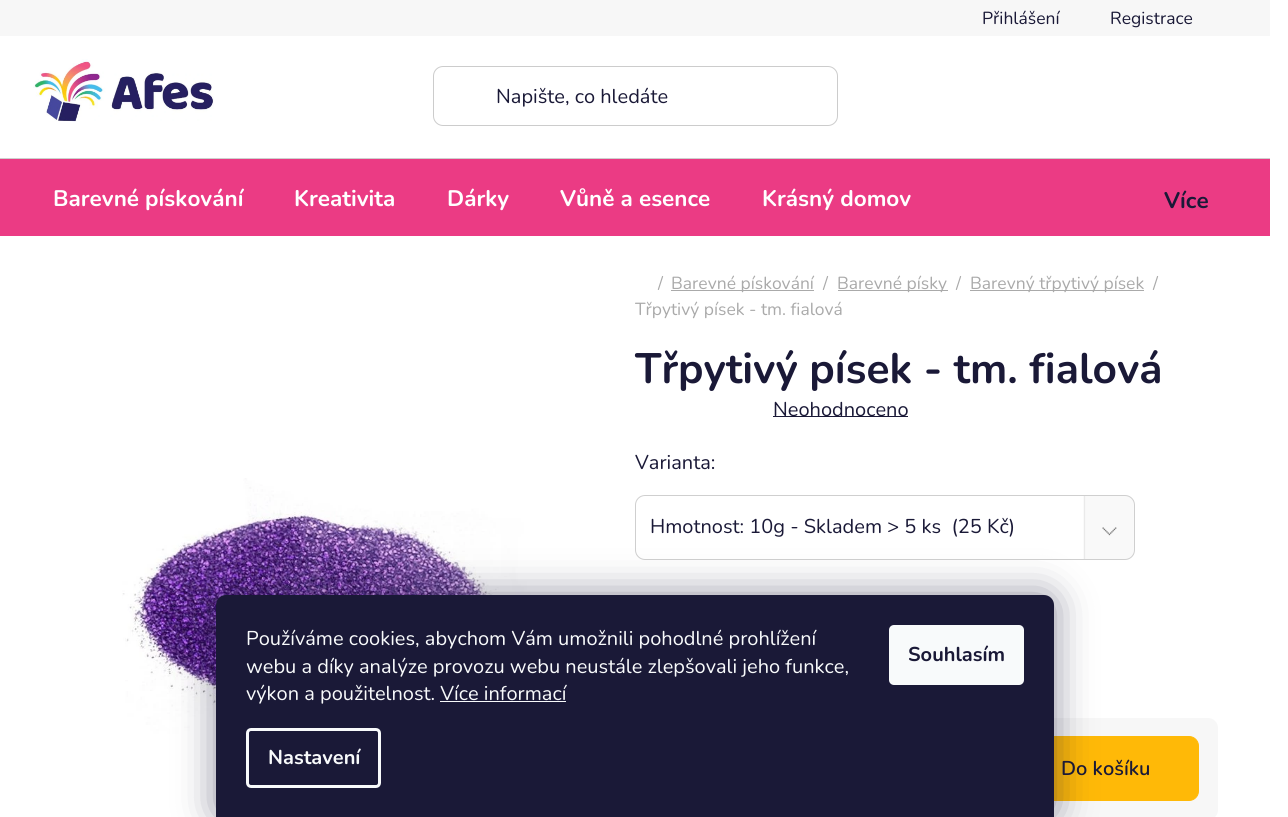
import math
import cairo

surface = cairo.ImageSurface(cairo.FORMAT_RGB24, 1288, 817)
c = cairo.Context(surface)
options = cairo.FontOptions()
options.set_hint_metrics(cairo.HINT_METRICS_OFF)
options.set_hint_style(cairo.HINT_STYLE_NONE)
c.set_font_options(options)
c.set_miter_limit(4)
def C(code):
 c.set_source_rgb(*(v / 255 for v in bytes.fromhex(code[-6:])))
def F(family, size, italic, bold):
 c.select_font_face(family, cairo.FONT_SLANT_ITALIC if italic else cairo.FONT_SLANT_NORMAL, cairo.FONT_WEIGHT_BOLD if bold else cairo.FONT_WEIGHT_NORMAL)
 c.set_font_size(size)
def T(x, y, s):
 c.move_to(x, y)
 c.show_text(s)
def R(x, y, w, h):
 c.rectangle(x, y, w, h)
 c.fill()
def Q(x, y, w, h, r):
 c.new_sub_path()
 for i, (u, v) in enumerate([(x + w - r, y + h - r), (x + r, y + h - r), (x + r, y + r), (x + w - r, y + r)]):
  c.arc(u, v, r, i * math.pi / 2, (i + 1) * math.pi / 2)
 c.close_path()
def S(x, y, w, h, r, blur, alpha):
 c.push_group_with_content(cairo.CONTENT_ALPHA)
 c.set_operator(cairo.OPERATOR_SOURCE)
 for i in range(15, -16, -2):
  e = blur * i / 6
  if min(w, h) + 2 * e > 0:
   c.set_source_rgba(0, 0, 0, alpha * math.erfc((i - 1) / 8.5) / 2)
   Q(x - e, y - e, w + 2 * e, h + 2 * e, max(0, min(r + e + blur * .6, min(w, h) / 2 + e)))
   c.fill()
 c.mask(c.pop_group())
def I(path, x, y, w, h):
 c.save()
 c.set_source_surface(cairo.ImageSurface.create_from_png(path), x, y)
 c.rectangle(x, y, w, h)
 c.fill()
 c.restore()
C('ffffff')
c.paint()
C('f7f7f7')
R(0,0,1270,36)
F('Nunito',17.5,0,0)
C('1a1937')
T(982,24,'Přihlášení')
T(1110,24,'Registrace')
I('1.png',33,59,181,63)
Q(433.5,66.5,404,59,9.5)
C('cccccc')
c.set_line_width(1)
c.stroke()
F('Nunito',20,0,0)
C('1a1937')
T(496,103,'Napište, co hledáte')
C('eb3b84')
R(0,159,1270,77)
C('cfcfcf')
R(0,158,1270,1)
F('Nunito',22.5,0,1)
C('ffffff')
T(53,206,'Barevné pískování')
T(294,206,'Kreativita')
T(447,206,'Dárky')
T(560,206,'Vůně a esence')
T(762,206,'Krásný domov')
C('1a1937')
T(1164,208,'Více')
F('Nunito',17.5,0,0)
C('aaaaaa')
T(658,289,'/')
R(671,290,143,1)
T(671,289,'Barevné pískování')
T(823,289,'/')
R(838,290,110,1)
T(837,289,'Barevné písky')
T(956,289,'/')
R(970,290,174,1)
T(970,289,'Barevný třpytivý písek')
T(1153,289,'/')
T(635,315,'Třpytivý písek - tm. fialová')
I('2.png',122,478,409,308)
F('Nunito',42.5,0,1)
C('1a1937')
T(635,383,'Třpytivý písek - tm. fialová')
R(773,416,135,1)
F('Nunito',20,0,0)
T(773,416,'Neohodnoceno')
T(635,469,'Varianta:')
I('3.png',1083,495,51,65)
Q(635.5,495.5,499,64,9.5)
C('cfcfcf')
c.stroke()
C('1a1937')
T(650,533,'Hmotnost: 10g - Skladem > 5 ks  (25 Kč)')
C('f7f7f7')
Q(635,718,583,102,10)
c.fill()
C('ffb907')
Q(1013.5,736.5,185,64,9.5)
c.fill_preserve()
c.stroke()
F('Nunito SemiBold',20,0,0)
C('1a1937')
T(1061,775,'Do košíku')
C('1b1939')
S(216,595,838,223,10,19,.5)
C('1a1937')
c.new_path()
c.move_to(226,595)
c.line_to(1044,595)
c.curve_to(1049.5,595,1054,599.5,1054,605)
c.line_to(1054,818)
c.line_to(216,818)
c.line_to(216,605)
c.curve_to(216,599.5,220.5,595,226,595)
c.close_path()
c.fill()
F('Nunito',20,0,0)
C('f8fafb')
T(246,645,'Používáme cookies, abychom Vám umožnili pohodlné prohlížení')
T(246,673,'webu a díky analýze provozu webu neustále zlepšovali jeho funkce,')
T(246,700,'výkon a použitelnost. Více informací')
R(440,701,126,1)
Q(247.5,729.5,132,57,3.5)
c.set_line_width(3)
c.stroke()
F('Nunito',20,0,1)
T(268,764,'Nastavení')
Q(889,625,135,60,5)
c.fill()
C('1a1937')
T(908,661,'Souhlasím')
surface.write_to_png('o.png')
